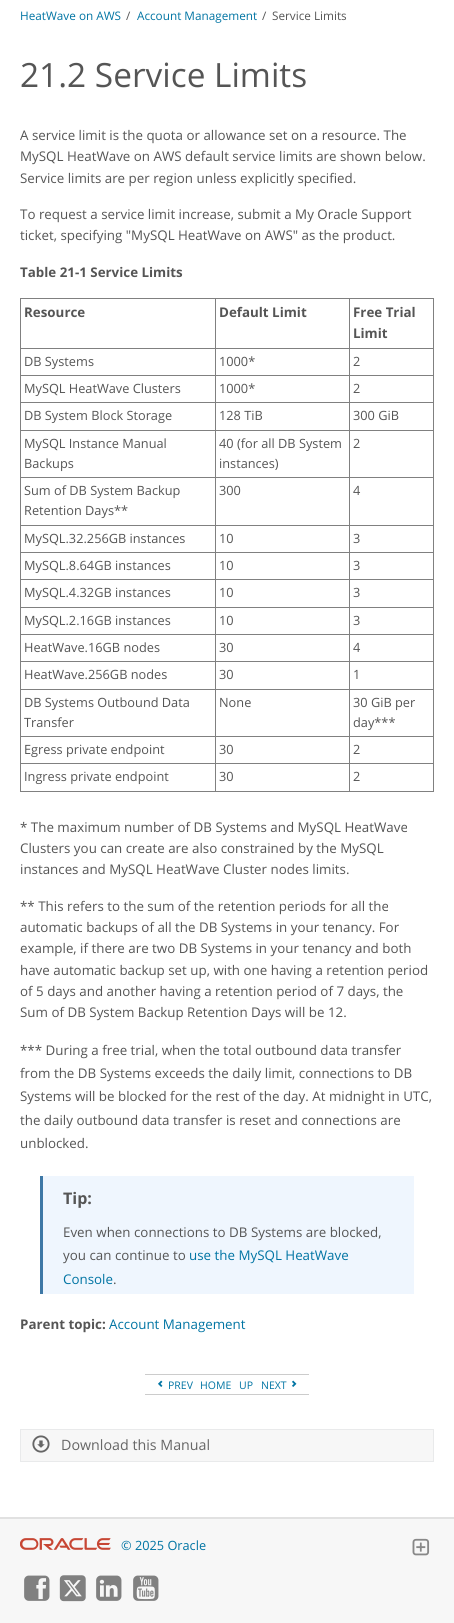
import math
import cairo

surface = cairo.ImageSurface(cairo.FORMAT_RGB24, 454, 1623)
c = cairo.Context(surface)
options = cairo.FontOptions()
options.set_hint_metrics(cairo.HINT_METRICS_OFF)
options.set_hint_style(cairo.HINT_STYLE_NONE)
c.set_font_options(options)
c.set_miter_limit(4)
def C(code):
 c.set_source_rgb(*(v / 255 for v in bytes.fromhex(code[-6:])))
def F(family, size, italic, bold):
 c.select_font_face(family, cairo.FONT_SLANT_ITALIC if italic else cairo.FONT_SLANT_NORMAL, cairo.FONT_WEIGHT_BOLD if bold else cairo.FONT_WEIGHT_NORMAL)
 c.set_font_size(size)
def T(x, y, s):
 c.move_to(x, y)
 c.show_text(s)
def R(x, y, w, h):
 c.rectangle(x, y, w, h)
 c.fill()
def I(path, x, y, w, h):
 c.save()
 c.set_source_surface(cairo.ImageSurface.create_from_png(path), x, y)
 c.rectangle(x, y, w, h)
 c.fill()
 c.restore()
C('ffffff')
c.paint()
F('Open Sans',11.75,0,0)
C('0074a3')
T(20,20,'HeatWave on AWS')
C('555555')
T(126,20,'/')
C('0074a3')
T(137,20,'Account Management')
C('555555')
T(262,20,'/')
T(272,20,'Service Limits')
F('Open Sans',33.4,0,0)
T(20,87,'21.2 Service Limits')
F('Open Sans',13.35,0,0)
T(20,140,'A service limit is the quota or allowance set on a resource. The')
T(20,161,'MySQL HeatWave on AWS')
T(185,161,'default service limits are shown below.')
T(20,183,'Service limits are per region unless explicitly specified.')
T(20,219,'To request a service limit increase, submit a My Oracle Support')
T(20,240,'ticket, specifying "MySQL HeatWave on AWS" as the product.')
F('Open Sans',13.35,0,1)
T(20,277,'Table 21-1 Service Limits')
C('808080')
R(349,298,85,1)
R(349,348,85,1)
R(349,375,85,1)
R(349,402,85,1)
R(349,430,85,1)
R(349,477,85,1)
R(349,525,85,1)
R(349,552,85,1)
R(349,579,85,1)
R(349,607,85,1)
R(349,634,85,1)
R(349,661,85,1)
R(349,689,85,1)
R(349,736,85,1)
R(349,763,85,1)
R(433,763,1,29)
R(349,791,85,1)
R(349,763,1,29)
R(215,763,135,1)
R(349,736,1,28)
R(215,736,135,1)
R(349,689,1,48)
R(215,689,135,1)
R(349,661,1,29)
R(215,661,135,1)
R(349,634,1,28)
R(215,634,135,1)
R(349,607,1,28)
R(215,607,135,1)
R(349,579,1,29)
R(215,579,135,1)
R(349,552,1,28)
R(215,552,135,1)
R(349,525,1,28)
R(215,525,135,1)
R(349,477,1,49)
R(215,477,135,1)
R(349,430,1,48)
R(215,430,135,1)
R(349,402,1,29)
R(215,402,135,1)
R(349,375,1,28)
R(215,375,135,1)
R(349,348,1,28)
R(215,348,135,1)
R(349,298,1,51)
R(215,298,135,1)
R(215,791,135,1)
R(215,763,1,29)
R(20,763,196,1)
R(215,736,1,28)
R(20,736,196,1)
R(215,689,1,48)
R(20,689,196,1)
R(215,661,1,29)
R(20,661,196,1)
R(215,634,1,28)
R(20,634,196,1)
R(215,607,1,28)
R(20,607,196,1)
R(215,579,1,29)
R(20,579,196,1)
R(215,552,1,28)
R(20,552,196,1)
R(215,525,1,28)
R(20,525,196,1)
R(215,477,1,49)
R(20,477,196,1)
R(215,430,1,48)
R(20,430,196,1)
R(215,402,1,29)
R(20,402,196,1)
R(215,375,1,28)
R(20,375,196,1)
R(215,348,1,28)
R(20,348,196,1)
R(215,298,1,51)
R(20,298,196,1)
R(20,791,196,1)
R(20,763,1,29)
R(20,736,1,28)
R(20,689,1,48)
R(20,661,1,29)
R(20,634,1,28)
R(20,607,1,28)
R(20,579,1,29)
R(20,552,1,28)
R(20,525,1,28)
R(20,477,1,49)
R(20,430,1,48)
R(20,402,1,29)
R(20,375,1,28)
R(20,348,1,28)
R(20,298,1,51)
C('555555')
T(24,317,'Resource')
T(219,317,'Default Limit')
C('808080')
R(433,736,1,28)
R(433,689,1,48)
R(433,661,1,29)
R(433,634,1,28)
R(433,607,1,28)
R(433,579,1,29)
R(433,552,1,28)
R(433,525,1,28)
R(433,477,1,49)
R(433,430,1,48)
R(433,402,1,29)
R(433,375,1,28)
R(433,348,1,28)
R(433,298,1,51)
C('555555')
T(353,317,'Free Trial')
T(353,338,'Limit')
F('Open Sans',12.75,0,0)
T(24,366,'DB Systems')
T(219,366,'1000*')
T(353,366,'2')
T(24,393,'MySQL HeatWave Clusters')
T(219,393,'1000*')
T(353,393,'2')
T(24,420,'DB System Block Storage')
T(219,420,'128 TiB')
T(353,420,'300 GiB')
T(24,448,'MySQL Instance Manual')
T(24,468,'Backups')
T(219,448,'40 (for all DB System')
T(219,468,'instances)')
T(353,448,'2')
T(24,495,'Sum of DB System Backup')
T(24,515,'Retention Days**')
T(219,495,'300')
T(353,495,'4')
T(24,543,'MySQL.32.256GB instances')
T(219,543,'10')
T(353,543,'3')
T(24,570,'MySQL.8.64GB instances')
T(219,570,'10')
T(353,570,'3')
T(24,597,'MySQL.4.32GB instances')
T(219,597,'10')
T(353,597,'3')
T(24,625,'MySQL.2.16GB instances')
T(219,625,'10')
T(353,625,'3')
T(24,652,'HeatWave.16GB nodes')
T(219,652,'30')
T(353,652,'4')
T(24,679,'HeatWave.256GB nodes')
T(219,679,'30')
T(353,679,'1')
T(24,707,'DB Systems Outbound Data')
T(24,727,'Transfer')
T(219,707,'None')
T(353,707,'30 GiB per')
T(353,727,'day***')
T(24,754,'Egress private endpoint')
T(219,754,'30')
T(353,754,'2')
T(24,781,'Ingress private endpoint')
T(219,781,'30')
T(353,781,'2')
F('Open Sans',13.35,0,0)
T(20,832,'* The maximum number of DB Systems and MySQL HeatWave')
T(20,853,'Clusters you can create are also constrained by the MySQL')
T(20,874,'instances and MySQL HeatWave Cluster nodes limits.')
T(20,911,'** This refers to the sum of the retention periods for all the')
T(20,932,'automatic backups of all the DB Systems in your tenancy. For')
T(20,953,'example, if there are two DB Systems in your tenancy and both')
T(20,975,'have automatic backup set up, with one having a retention period')
T(20,996,'of 5 days and another having a')
T(215,996,'retention period of 7 days, the')
T(20,1017,'Sum of DB System Backup Retention Days will be 12.')
T(20,1055,'*** During a free trial, when the total outbound data transfer')
T(20,1078,'from the DB Systems exceeds the daily limit, connections to DB')
T(20,1101,'Systems will be blocked for the rest of the day. At midnight in UTC,')
T(20,1125,'the daily outbound data transfer is reset and connections are')
T(20,1148,'unblocked.')
C('eff6fe')
R(43,1176,371,118)
C('3e78a6')
R(40,1176,3,118)
F('Open Sans',16,0,1)
C('555555')
T(63,1204,'Tip:')
F('Open Sans',13.35,0,0)
T(63,1237,'Even when connections to DB Systems are blocked,')
T(63,1260,'you can continue to')
C('0074a3')
T(189,1260,'use the MySQL HeatWave')
T(63,1284,'Console')
C('555555')
T(113,1284,'.')
F('Open Sans',13.35,0,1)
T(20,1329,'Parent topic:')
F('Open Sans',13.35,0,0)
C('0074a3')
T(109,1329,'Account Management')
C('cccccc')
R(145,1374,164,1)
R(145,1394,164,1)
I('1.png',158,1380,5,7)
F('Open Sans',10.5,0,0)
C('0074a3')
T(168,1389,'PREV')
T(200,1389,'HOME')
T(239,1389,'UP')
T(261,1389,'NEXT')
I('2.png',292,1380,5,7)
C('f7f7f7')
c.rectangle(20.5,1429.5,413,32)
c.fill_preserve()
C('e9eaeb')
c.set_line_width(1)
c.stroke()
I('3.png',32,1435,18,18)
F('Open Sans',14.25,0,0)
C('666666')
T(61,1450,'Download this Manual')
C('f7f7f7')
R(0,1519,454,104)
C('e1e1e1')
R(0,1517,454,2)
I('4.png',20,1538,91,12)
F('Open Sans',12.75,0,0)
C('0074a3')
T(121,1550,'© 2025 Oracle')
I('5.png',412,1538,18,18)
I('6.png',24,1575,26,26)
I('7.png',59,1575,27,27)
I('8.png',96,1575,26,26)
I('9.png',133,1575,26,26)
surface.write_to_png('o.png')
